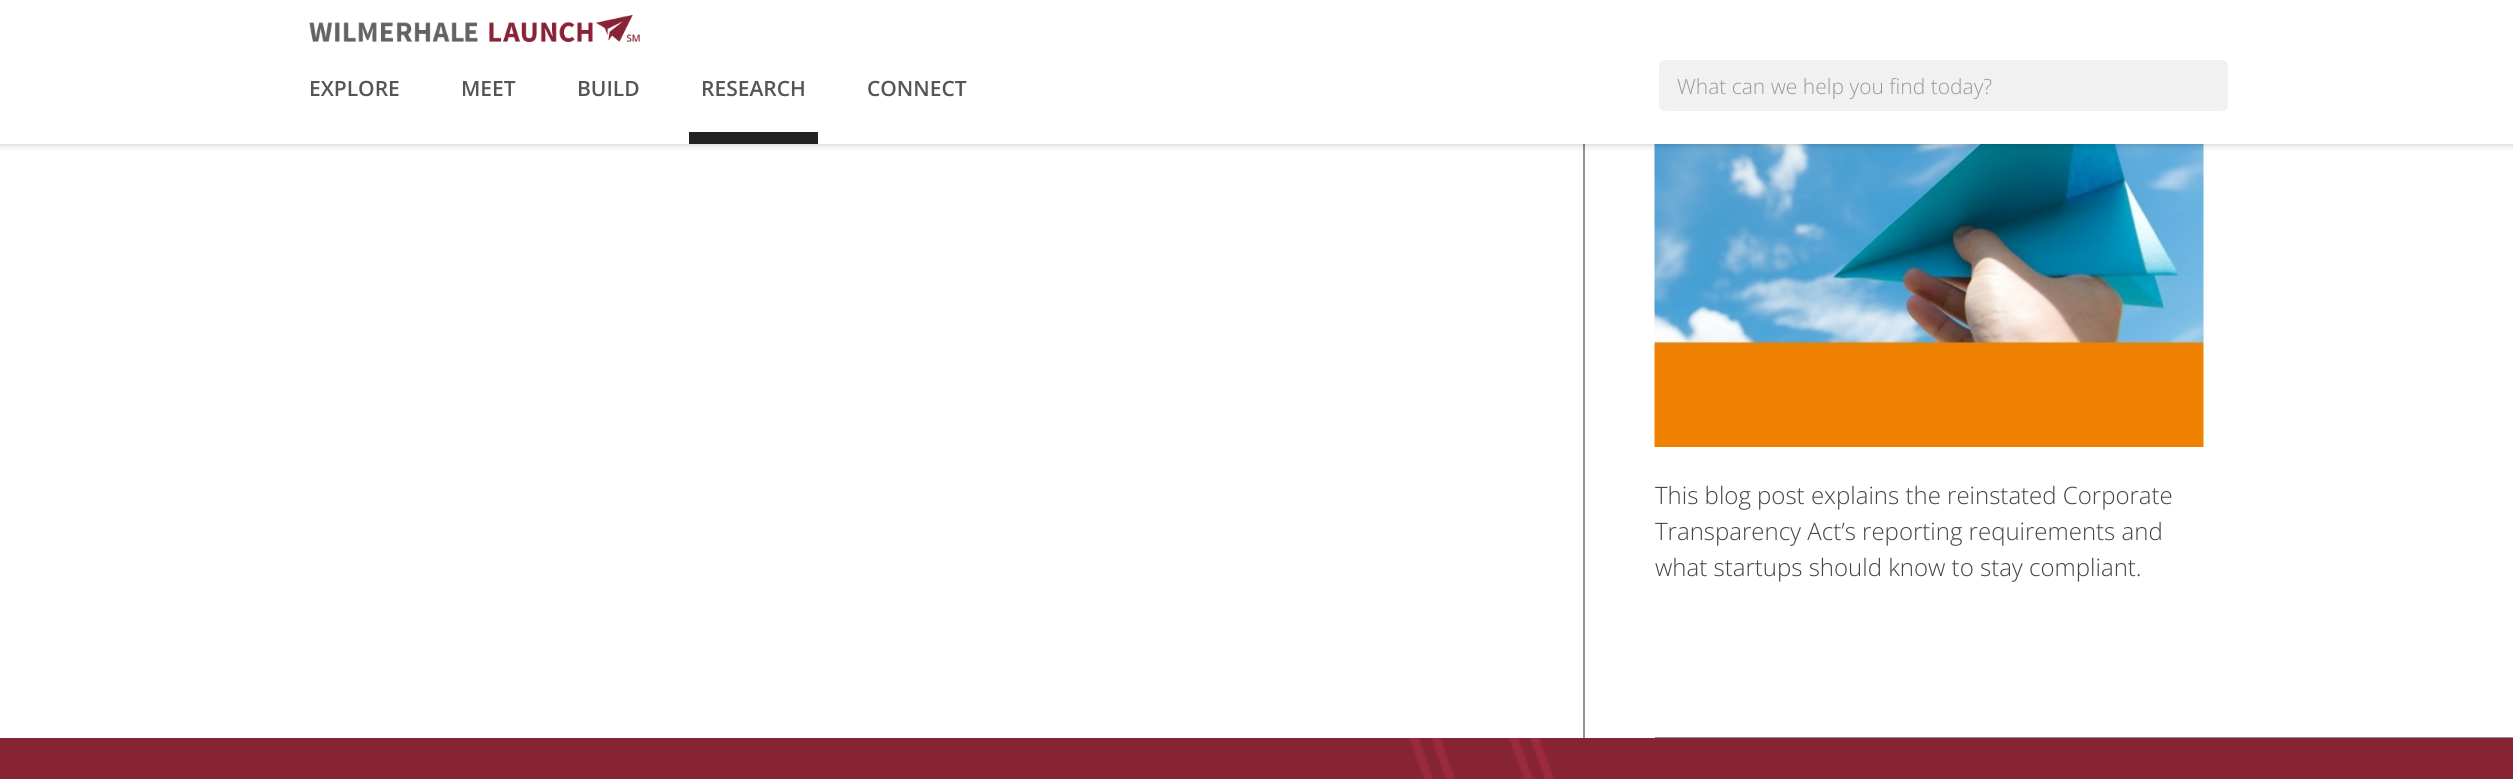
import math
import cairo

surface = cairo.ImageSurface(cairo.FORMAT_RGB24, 2513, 779)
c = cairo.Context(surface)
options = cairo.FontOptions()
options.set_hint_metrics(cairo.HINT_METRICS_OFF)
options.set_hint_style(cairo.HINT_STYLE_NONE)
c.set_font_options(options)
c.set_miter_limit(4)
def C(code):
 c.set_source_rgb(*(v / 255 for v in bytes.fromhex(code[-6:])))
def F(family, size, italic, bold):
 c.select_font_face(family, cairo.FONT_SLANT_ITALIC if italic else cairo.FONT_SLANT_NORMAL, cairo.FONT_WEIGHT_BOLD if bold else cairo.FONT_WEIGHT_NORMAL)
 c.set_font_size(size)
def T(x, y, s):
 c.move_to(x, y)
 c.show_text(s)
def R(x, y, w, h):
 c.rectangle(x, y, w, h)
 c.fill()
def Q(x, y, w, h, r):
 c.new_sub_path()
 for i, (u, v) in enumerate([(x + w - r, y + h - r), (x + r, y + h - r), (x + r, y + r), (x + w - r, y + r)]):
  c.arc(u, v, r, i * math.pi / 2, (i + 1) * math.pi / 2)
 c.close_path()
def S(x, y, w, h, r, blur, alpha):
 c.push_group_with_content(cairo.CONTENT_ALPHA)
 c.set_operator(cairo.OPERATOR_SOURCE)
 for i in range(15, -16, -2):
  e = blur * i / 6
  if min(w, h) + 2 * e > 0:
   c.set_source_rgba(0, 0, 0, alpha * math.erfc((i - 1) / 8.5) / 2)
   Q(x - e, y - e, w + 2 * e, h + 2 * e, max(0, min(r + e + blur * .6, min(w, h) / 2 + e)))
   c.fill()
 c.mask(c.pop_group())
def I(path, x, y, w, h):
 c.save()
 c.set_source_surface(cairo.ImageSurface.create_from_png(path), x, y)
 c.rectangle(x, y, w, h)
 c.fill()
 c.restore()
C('ffffff')
c.paint()
C('909090')
R(1583,144,2,594)
I('2.png',1654,144,550,303)
C('000000')
S(0,0,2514,144,0,4,.25)
C('ffffff')
R(0,0,2513,144)
I('1.png',309,15,331,27)
F('Open Sans SemiBold',21,0,0)
C('555555')
T(309,96,'EXPLORE')
T(461,96,'MEET')
T(577,96,'BUILD')
C('222222')
R(689,132,129,12)
C('555555')
T(701,96,'RESEARCH')
T(867,96,'CONNECT')
C('f1f1f1')
c.new_path()
c.move_to(1665,60)
c.line_to(2171,60)
c.line_to(2171,111)
c.line_to(1665,111)
c.curve_to(1661.5,111,1659,108.5,1659,105)
c.line_to(1659,66)
c.curve_to(1659,62.5,1661.5,60,1665,60)
c.close_path()
c.fill()
F('Open Sans Light',21,0,0)
C('999999')
T(1677,94,'What can we help you find today?')
C('f1f1f1')
c.new_path()
c.move_to(2171,60)
c.line_to(2222,60)
c.curve_to(2225.5,60,2228,62.5,2228,66)
c.line_to(2228,105)
c.curve_to(2228,108.5,2225.5,111,2222,111)
c.line_to(2171,111)
c.close_path()
c.fill()
F('Open Sans Light',24,0,0)
C('444444')
T(1655,504,'This blog post explains the reinstated Corporate')
T(1655,540,'Transparency Act’s reporting requirements and')
T(1655,576,'what startups should know to stay compliant.')
C('909090')
R(1655,737,858,1)
C('872434')
R(0,738,2513,41)
I('3.png',1409,738,145,41)
surface.write_to_png('o.png')
